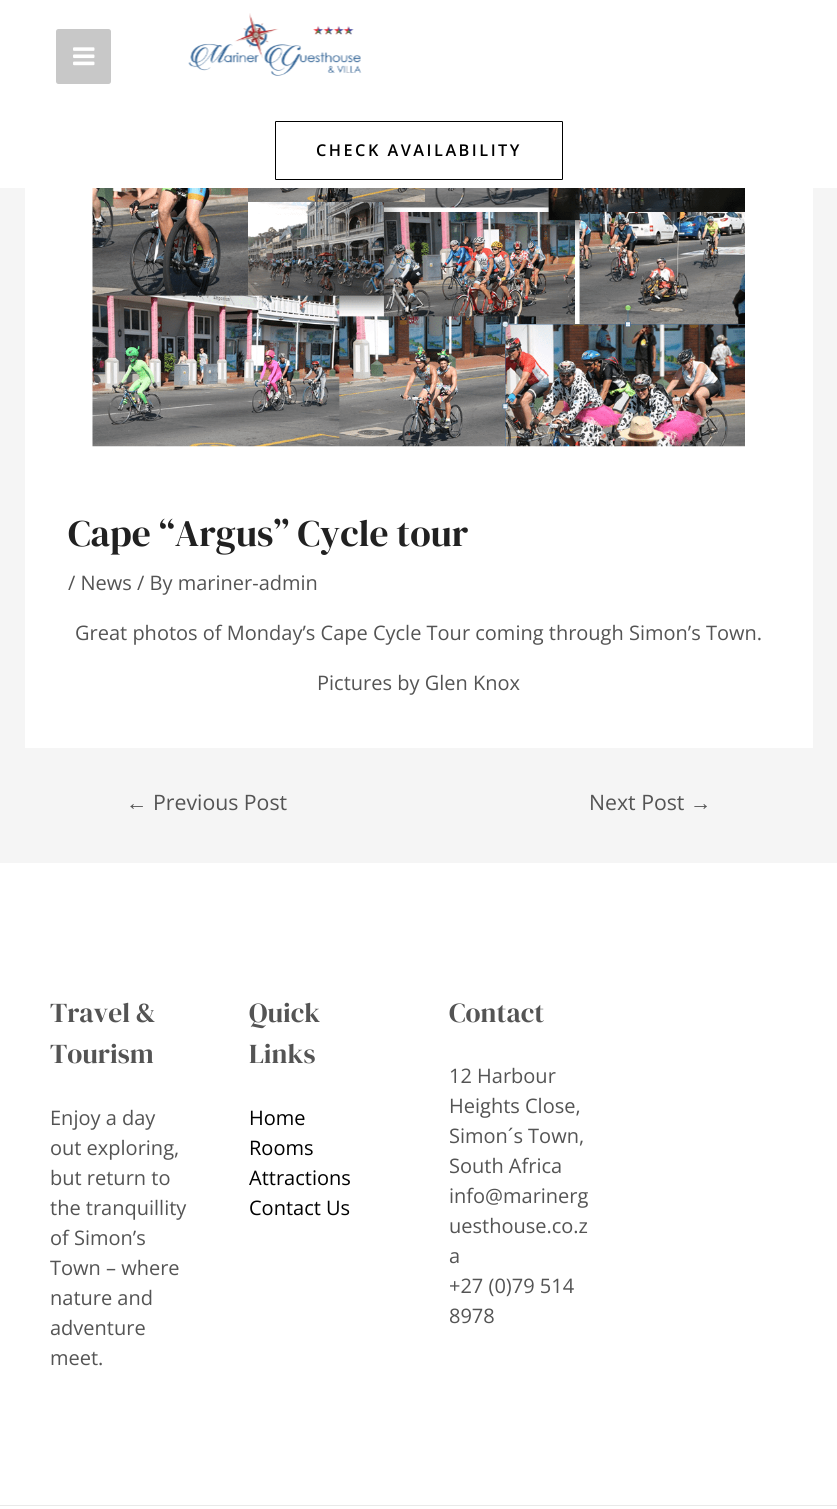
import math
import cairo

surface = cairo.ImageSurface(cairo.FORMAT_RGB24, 837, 1509)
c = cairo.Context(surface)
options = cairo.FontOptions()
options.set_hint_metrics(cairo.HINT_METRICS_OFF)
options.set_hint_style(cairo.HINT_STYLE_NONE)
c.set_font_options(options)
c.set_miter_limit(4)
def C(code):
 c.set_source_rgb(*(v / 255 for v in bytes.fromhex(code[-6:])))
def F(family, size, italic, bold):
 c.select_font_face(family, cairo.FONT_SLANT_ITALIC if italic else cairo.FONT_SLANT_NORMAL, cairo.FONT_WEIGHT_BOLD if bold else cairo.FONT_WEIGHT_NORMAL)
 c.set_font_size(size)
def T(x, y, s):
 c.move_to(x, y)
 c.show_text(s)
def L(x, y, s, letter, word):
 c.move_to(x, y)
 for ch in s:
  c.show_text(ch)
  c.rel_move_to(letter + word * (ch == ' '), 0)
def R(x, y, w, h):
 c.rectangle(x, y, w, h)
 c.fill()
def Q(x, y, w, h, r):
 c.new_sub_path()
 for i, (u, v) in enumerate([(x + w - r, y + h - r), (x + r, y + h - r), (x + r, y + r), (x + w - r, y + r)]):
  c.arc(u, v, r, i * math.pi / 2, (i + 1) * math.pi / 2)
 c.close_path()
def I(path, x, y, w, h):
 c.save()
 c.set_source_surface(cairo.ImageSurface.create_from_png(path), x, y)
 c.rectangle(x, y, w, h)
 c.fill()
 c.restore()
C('f5f5f5')
c.paint()
C('ffffff')
R(0,0,837,188)
C('c8c8c8')
Q(56,29,55,55,2.5)
c.fill()
I('1.png',73,47,22,19)
I('2.png',188,13,174,63)
Q(275.5,121.5,287,58,.5)
C('000000')
c.set_line_width(1)
c.stroke()
F('Open Sans SemiBold',16.25,0,0)
L(316,156,'CHECK AVAILABILITY',2.5,0)
C('ffffff')
R(25,188,788,560)
I('3.png',92,188,653,259)
F('DM Serif Display',37.5,0,0)
C('212121')
T(68,546,'Cape “Argus” Cycle tour')
F('Open Sans',20,0,0)
C('545454')
T(68,590,'/ News / By mariner-admin')
T(75,640,'Great photos of Monday’s Cape Cycle Tour coming through Simon’s Town.')
T(317,690,'Pictures by Glen Knox')
F('Liberation Sans',21.25,0,0)
T(126,810,'←')
F('Open Sans',21.25,0,0)
T(153,810,'Previous Post')
T(589,810,'Next Post')
F('Liberation Sans',21.25,0,0)
T(690,810,'→')
C('ffffff')
R(0,863,837,642)
F('DM Serif Display',27.5,0,0)
C('545454')
T(50,1022,'Travel &')
T(50,1063,'Tourism')
F('Open Sans',20,0,0)
T(50,1125,'Enjoy a day')
T(50,1155,'out exploring,')
T(50,1185,'but return to')
T(50,1215,'the tranquillity')
T(50,1245,'of Simon’s')
T(50,1275,'Town – where')
T(50,1305,'nature and')
T(50,1335,'adventure')
T(50,1365,'meet.')
F('DM Serif Display',27.5,0,0)
T(249,1022,'Quick')
T(249,1063,'Links')
F('Open Sans',20,0,0)
C('000000')
T(249,1125,'Home')
T(249,1155,'Rooms')
T(249,1185,'Attractions')
T(249,1215,'Contact Us')
F('DM Serif Display',27.5,0,0)
C('545454')
T(449,1022,'Contact')
F('Open Sans',20,0,0)
T(449,1083,'12 Harbour')
T(449,1113,'Heights Close,')
T(449,1143,'Simon´s Town,')
T(449,1173,'South Africa')
T(449,1203,'info@marinerg')
T(449,1233,'uesthouse.co.z')
T(449,1263,'a')
T(449,1293,'+27 (0)79 514')
T(449,1323,'8978')
C('ffffff')
R(0,1506,837,3)
C('e9e9e9')
R(0,1505,837,1)
surface.write_to_png('o.png')
